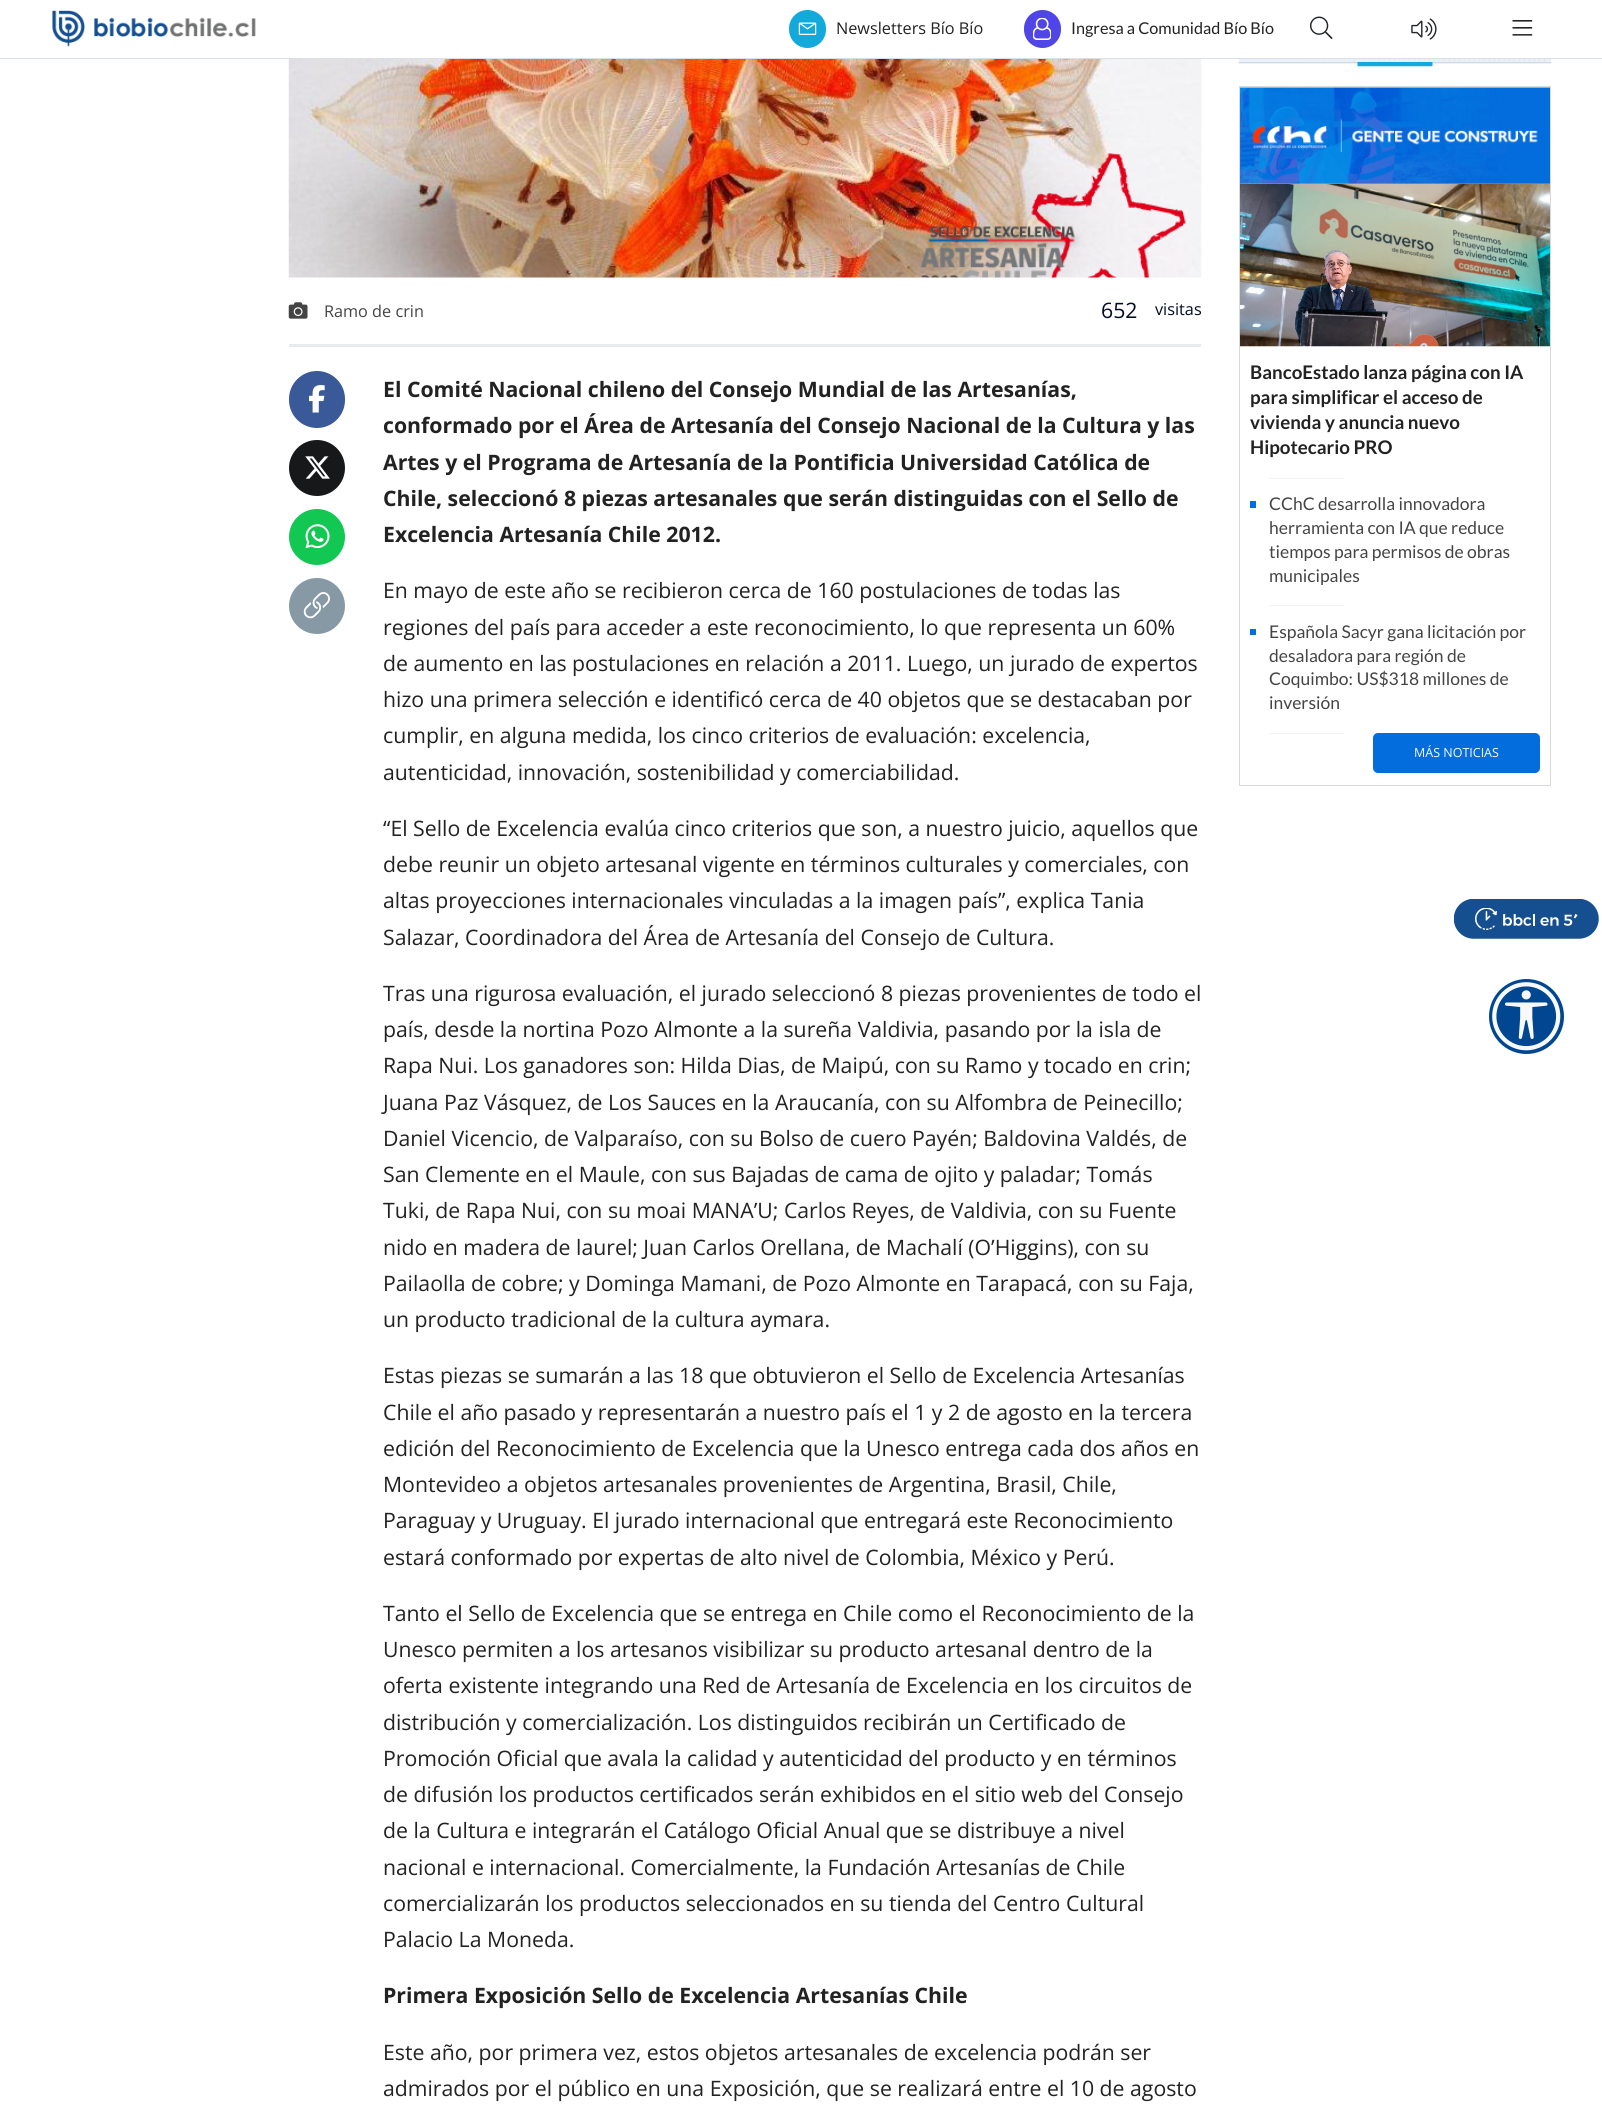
import math
import cairo

surface = cairo.ImageSurface(cairo.FORMAT_RGB24, 1602, 2106)
c = cairo.Context(surface)
options = cairo.FontOptions()
options.set_hint_metrics(cairo.HINT_METRICS_OFF)
options.set_hint_style(cairo.HINT_STYLE_NONE)
c.set_font_options(options)
c.set_miter_limit(4)
def C(code):
 c.set_source_rgb(*(v / 255 for v in bytes.fromhex(code[-6:])))
def F(family, size, italic, bold):
 c.select_font_face(family, cairo.FONT_SLANT_ITALIC if italic else cairo.FONT_SLANT_NORMAL, cairo.FONT_WEIGHT_BOLD if bold else cairo.FONT_WEIGHT_NORMAL)
 c.set_font_size(size)
def T(x, y, s):
 c.move_to(x, y)
 c.show_text(s)
def R(x, y, w, h):
 c.rectangle(x, y, w, h)
 c.fill()
def Q(x, y, w, h, r):
 c.new_sub_path()
 for i, (u, v) in enumerate([(x + w - r, y + h - r), (x + r, y + h - r), (x + r, y + r), (x + w - r, y + r)]):
  c.arc(u, v, r, i * math.pi / 2, (i + 1) * math.pi / 2)
 c.close_path()
def I(path, x, y, w, h):
 c.save()
 c.set_source_surface(cairo.ImageSurface.create_from_png(path), x, y)
 c.rectangle(x, y, w, h)
 c.fill()
 c.restore()
C('ffffff')
c.paint()
C('dbe0e4')
R(0,58,1602,1)
I('1.png',52,10,204,37)
C('13aadb')
Q(789,10,37,38,18.5)
c.fill()
I('2.png',798,22,19,13)
F('Open Sans',16.25,0,0)
C('222222')
T(836,34,'Newsletters Bío Bío')
C('4f46e5')
Q(1024,10,37,38,18.5)
c.fill()
I('3.png',1033,18,18,22)
F('Lato',16.25,0,0)
C('222222')
T(1071,34,'Ingresa a Comunidad Bío Bío')
I('4.png',1310,16,23,23)
I('5.png',1411,18,26,22)
I('6.png',1512,20,21,16)
I('7.png',1454,899,145,40)
I('8.png',1489,979,75,75)
I('9.png',288,59,914,219)
C('e7ebed')
R(289,344,912,3)
I('10.png',288,302,20,17)
F('Open Sans',16.25,0,0)
C('444444')
T(324,317,'Ramo de crin')
F('Open Sans',21.25,0,0)
C('030c26')
T(1101,318,'652')
F('Open Sans',16.25,0,0)
T(1155,315,'visitas')
C('3a5998')
Q(289,371,56,57,28)
c.fill()
I('11.png',309,385,16,28)
C('171819')
c.arc(317,468,28,0,2 * math.pi)
c.fill()
I('12.png',305,456,25,23)
C('12c853')
c.arc(317,537,28,0,2 * math.pi)
c.fill()
I('13.png',305,524,25,25)
C('8899a6')
c.arc(317,606,28,0,2 * math.pi)
c.fill()
I('14.png',303,592,27,27)
F('Open Sans',21.25,0,1)
C('222222')
T(383,397,'El Comité Nacional chileno del Consejo Mundial de las Artesanías,')
T(383,433,'conformado por el Área de Artesanía del Consejo Nacional de la Cultura y las')
T(383,470,'Artes y el Programa de Artesanía de la Pontificia Universidad Católica de')
T(383,506,'Chile, seleccionó 8 piezas artesanales que serán distinguidas con el Sello de')
T(383,542,'Excelencia Artesanía Chile 2012.')
F('Open Sans',21.25,0,0)
T(383,598,'En mayo de este año se recibieron cerca de 160 postulaciones de todas las')
T(383,635,'regiones del país para acceder a este reconocimiento, lo que representa un 60%')
T(383,671,'de aumento en las postulaciones en relación a 2011. Luego, un jurado de expertos')
T(383,707,'hizo una primera selección e identificó cerca de 40 objetos que se destacaban por')
T(383,743,'cumplir, en alguna medida, los cinco criterios de evaluación: excelencia,')
T(383,780,'autenticidad, innovación, sostenibilidad y comerciabilidad.')
T(383,836,'“El Sello de Excelencia evalúa cinco criterios que son, a nuestro juicio, aquellos que')
T(383,872,'debe reunir un objeto artesanal vigente en términos culturales y comerciales, con')
T(383,908,'altas proyecciones internacionales vinculadas a la imagen país”, explica Tania')
T(383,945,'Salazar, Coordinadora del Área de Artesanía del Consejo de Cultura.')
T(383,1001,'Tras una rigurosa evaluación, el jurado seleccionó 8 piezas provenientes de todo el')
T(383,1037,'país, desde la nortina Pozo Almonte a la sureña Valdivia, pasando por la isla de')
T(383,1073,'Rapa Nui. Los ganadores son: Hilda Dias, de Maipú, con su Ramo y tocado en crin;')
T(383,1110,'Juana Paz Vásquez, de Los Sauces en la Araucanía, con su Alfombra de Peinecillo;')
T(383,1146,'Daniel Vicencio, de Valparaíso, con su Bolso de cuero Payén; Baldovina Valdés, de')
T(383,1182,'San Clemente en el Maule, con sus Bajadas de cama de ojito y paladar; Tomás')
T(383,1218,'Tuki, de Rapa Nui, con su moai MANA’U; Carlos Reyes, de Valdivia, con su Fuente')
T(383,1255,'nido en madera de laurel; Juan Carlos Orellana, de Machalí (O’Higgins), con su')
T(383,1291,'Pailaolla de cobre; y Dominga Mamani, de Pozo Almonte en Tarapacá, con su Faja,')
T(383,1327,'un producto tradicional de la cultura aymara.')
T(383,1383,'Estas piezas se sumarán a las 18 que obtuvieron el Sello de Excelencia Artesanías')
T(383,1420,'Chile el año pasado y representarán a nuestro país el 1 y 2 de agosto en la tercera')
T(383,1456,'edición del Reconocimiento de Excelencia que la Unesco entrega cada dos años en')
T(383,1492,'Montevideo a objetos artesanales provenientes de Argentina, Brasil, Chile,')
T(383,1528,'Paraguay y Uruguay. El jurado internacional que entregará este Reconocimiento')
T(383,1565,'estará conformado por expertas de alto nivel de Colombia, México y Perú.')
T(383,1621,'Tanto el Sello de Excelencia que se entrega en Chile como el Reconocimiento de la')
T(383,1657,'Unesco permiten a los artesanos visibilizar su producto artesanal dentro de la')
T(383,1693,'oferta existente integrando una Red de Artesanía de Excelencia en los circuitos de')
T(383,1730,'distribución y comercialización. Los distinguidos recibirán un Certificado de')
T(383,1766,'Promoción Oficial que avala la calidad y autenticidad del producto y en términos')
T(383,1802,'de difusión los productos certificados serán exhibidos en el sitio web del Consejo')
T(383,1838,'de la Cultura e integrarán el Catálogo Oficial Anual que se distribuye a nivel')
T(383,1875,'nacional e internacional. Comercialmente, la Fundación Artesanías de Chile')
T(383,1911,'comercializarán los productos seleccionados en su tienda del Centro Cultural')
T(383,1947,'Palacio La Moneda.')
F('Open Sans',21.25,0,1)
T(383,2003,'Primera Exposición Sello de Excelencia Artesanías Chile')
F('Open Sans',21.25,0,0)
T(383,2060,'Este año, por primera vez, estos objetos artesanales de excelencia podrán ser')
T(383,2096,'admirados por el público en una Exposición, que se realizará entre el 10 de agosto')
I('15.png',1238,59,314,8)
c.rectangle(1239.5,86.5,311,699)
C('d9d9d9')
c.set_line_width(1)
c.stroke()
I('17.png',1240,183,310,164)
I('16.png',1240,87,310,97)
F('Lato',18.75,0,1)
C('222222')
T(1250,379,'BancoEstado lanza página con IA')
T(1250,404,'para simplificar el acceso de')
T(1250,429,'vivienda y anuncia nuevo')
T(1250,454,'Hipotecario PRO')
C('f3f3f3')
R(1269,478,75,1)
C('036ddd')
R(1250,501,6,7)
F('Lato',17.5,0,0)
C('444444')
T(1269,510,'CChC desarrolla innovadora')
T(1269,534,'herramienta con IA que reduce')
T(1269,558,'tiempos para permisos de obras')
T(1269,582,'municipales')
C('f3f3f3')
R(1269,605,75,1)
C('036ddd')
R(1250,629,6,6)
C('444444')
T(1269,638,'Española Sacyr gana licitación por')
T(1269,662,'desaladora para región de')
T(1269,685,'Coquimbo: US$318 millones de')
T(1269,709,'inversión')
C('f3f3f3')
R(1269,733,74,1)
C('036ddd')
Q(1373,733,167,40,5)
c.fill()
F('Open Sans',12.5,0,0)
C('fafafa')
T(1414,757,'MÁS NOTICIAS')
surface.write_to_png('o.png')
